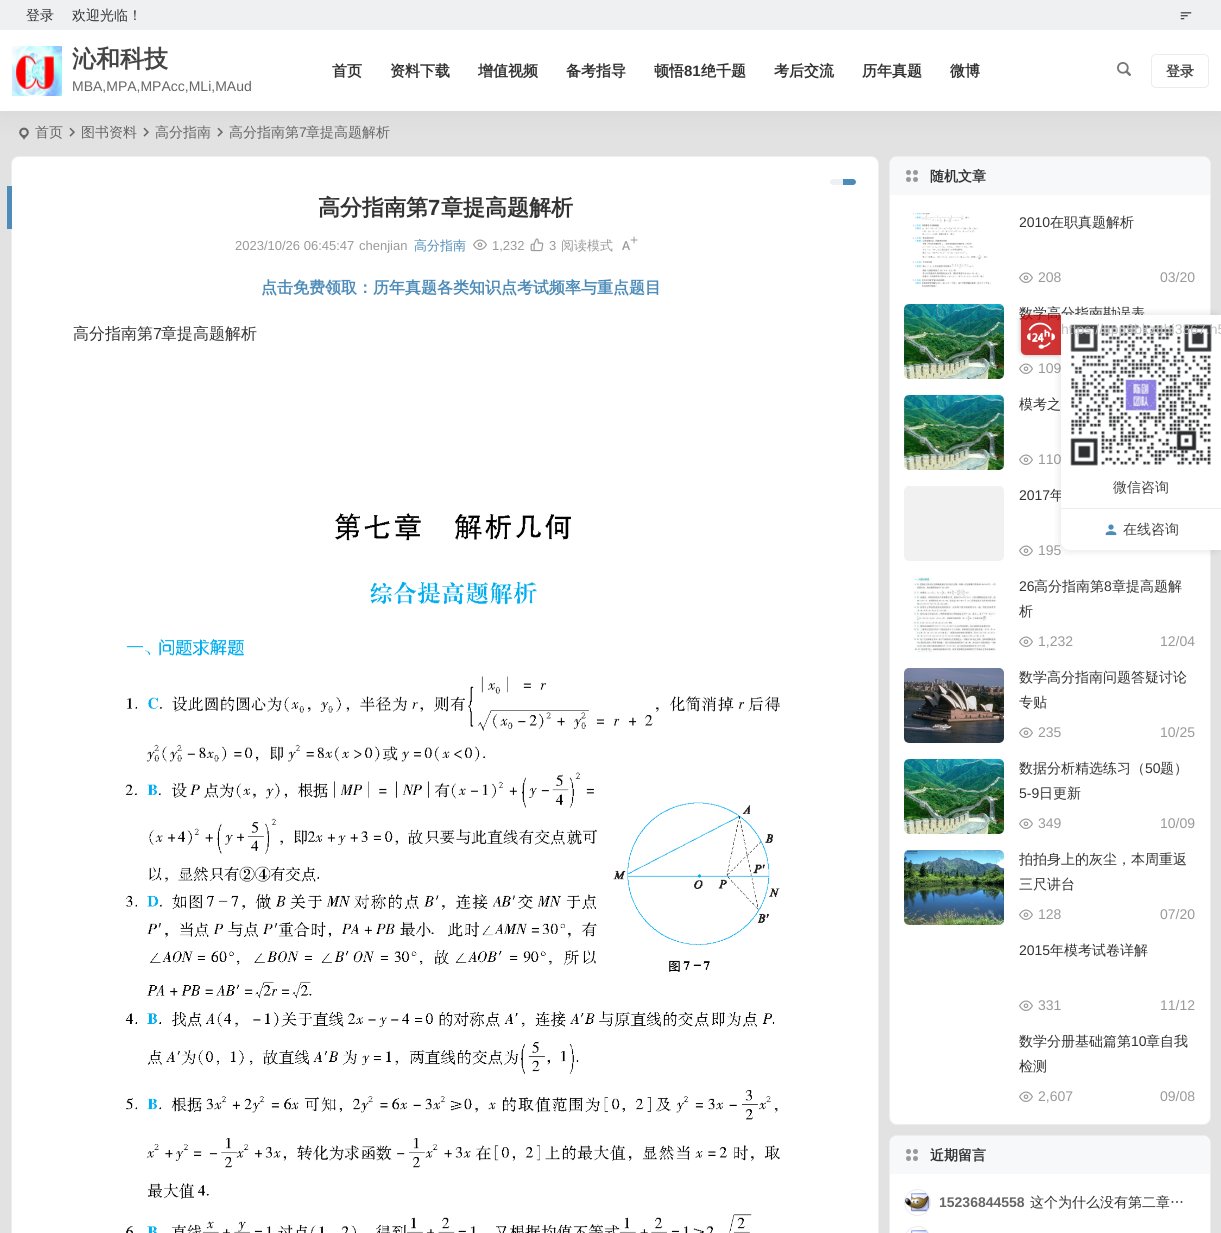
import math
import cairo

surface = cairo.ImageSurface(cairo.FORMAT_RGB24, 1221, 1233)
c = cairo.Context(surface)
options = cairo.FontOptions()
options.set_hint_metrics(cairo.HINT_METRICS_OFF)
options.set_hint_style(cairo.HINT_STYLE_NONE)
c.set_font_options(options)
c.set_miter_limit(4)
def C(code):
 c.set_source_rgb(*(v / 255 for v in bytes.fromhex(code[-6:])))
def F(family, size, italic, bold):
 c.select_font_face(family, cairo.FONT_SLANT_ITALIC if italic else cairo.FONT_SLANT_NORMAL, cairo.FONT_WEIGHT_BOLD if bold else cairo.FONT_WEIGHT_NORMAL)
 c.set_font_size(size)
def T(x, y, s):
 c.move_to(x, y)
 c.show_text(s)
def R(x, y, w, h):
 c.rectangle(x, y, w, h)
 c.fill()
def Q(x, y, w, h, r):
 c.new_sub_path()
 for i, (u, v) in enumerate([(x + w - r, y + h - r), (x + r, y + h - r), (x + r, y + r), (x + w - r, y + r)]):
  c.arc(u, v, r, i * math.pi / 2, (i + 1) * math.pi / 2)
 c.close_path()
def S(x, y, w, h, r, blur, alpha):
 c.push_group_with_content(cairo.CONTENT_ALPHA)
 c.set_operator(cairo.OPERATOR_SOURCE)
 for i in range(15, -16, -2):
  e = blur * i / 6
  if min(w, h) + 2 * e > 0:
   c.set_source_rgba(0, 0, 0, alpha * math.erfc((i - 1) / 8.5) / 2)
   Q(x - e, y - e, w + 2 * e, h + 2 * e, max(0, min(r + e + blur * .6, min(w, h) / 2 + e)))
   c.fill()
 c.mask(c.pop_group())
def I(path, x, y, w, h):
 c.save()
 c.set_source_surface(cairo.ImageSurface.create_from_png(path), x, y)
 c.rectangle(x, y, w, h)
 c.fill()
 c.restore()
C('e2e2e2')
c.paint()
I('4.png',19,127,10,13)
I('5.png',69,127,6,10)
I('5.png',143,127,6,10)
I('5.png',217,127,6,10)
C('ffffff')
Q(11,156,868,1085,8)
c.fill()
Q(11.5,156.5,867,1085,7.5)
c.set_source_rgba(0,0,0,0.07)
c.set_line_width(1)
c.stroke()
C('ffffff')
Q(889,156,322,969,8)
c.fill()
Q(889.5,156.5,321,968,7.5)
c.set_source_rgba(0,0,0,0.07)
c.stroke()
C('f7f8f9')
c.new_path()
c.move_to(898,157)
c.line_to(1202,157)
c.curve_to(1206.5,157,1210,160.5,1210,165)
c.line_to(1210,195)
c.line_to(890,195)
c.line_to(890,165)
c.curve_to(890,160.5,893.5,157,898,157)
c.close_path()
c.fill()
C('000000')
S(0,33,1221,81,0,15,.06)
C('eff0f2')
R(0,0,1221,30)
F('WenQuanYi Zen Hei Medium',14,0,0)
C('333333')
T(26,20,'登录')
T(72,20,'欢迎光临！')
I('1.png',1180,12,12,8)
C('ffffff')
R(0,30,1221,81)
I('2.png',12,46,50,50)
F('WenQuanYi Zen Hei',24,0,1)
C('444444')
T(72,67,'沁和科技')
F('Liberation Sans',14,0,0)
C('666666')
T(72,91,'MBA,MPA,MPAcc,MLi,MAud')
F('WenQuanYi Zen Hei',15,0,1)
C('333333')
T(332,76,'首页')
T(390,76,'资料下载')
T(478,76,'增值视频')
T(566,76,'备考指导')
T(654,76,'顿悟')
F('Liberation Sans',15,0,1)
T(684,76,'81')
F('WenQuanYi Zen Hei',15,0,1)
T(701,76,'绝千题')
T(774,76,'考后交流')
T(862,76,'历年真题')
T(950,76,'微博')
I('3.png',1117,62,14,14)
Q(1151.5,54.5,57,33,4.5)
C('ececec')
c.stroke()
F('WenQuanYi Zen Hei',14,0,1)
C('444444')
T(1166,76,'登录')
F('WenQuanYi Zen Hei Medium',14,0,0)
C('666666')
T(35,137,'首页')
T(81,137,'图书资料')
T(155,137,'高分指南')
T(229,137,'高分指南第')
F('Liberation Sans',14,0,0)
T(299,137,'7')
F('WenQuanYi Zen Hei Medium',14,0,0)
T(306,137,'章提高题解析')
C('4d8cb8')
R(7,186,5,43)
F('WenQuanYi Zen Hei',22,0,1)
C('333333')
T(318,215,'高分指南第')
F('Liberation Sans',22,0,1)
T(428,215,'7')
F('WenQuanYi Zen Hei',22,0,1)
T(441,215,'章提高题解析')
C('eff0f2')
Q(830,179,26,6,3)
c.fill()
C('4d8cb8')
c.new_path()
c.move_to(843,179)
c.line_to(853,179)
c.curve_to(854.5,179,856,180.5,856,182)
c.curve_to(856,183.5,854.5,185,853,185)
c.line_to(843,185)
c.close_path()
c.fill()
F('Liberation Sans',13,0,0)
C('999999')
T(235,250,'2023/10/26 06:45:47')
T(359,250,'chenjian')
F('WenQuanYi Zen Hei Medium',13,0,0)
C('4d8cb8')
T(414,250,'高分指南')
I('6.png',473,239,14,11)
F('Liberation Sans',13,0,0)
C('999999')
T(492,250,'1,232')
I('7.png',530,238,14,14)
T(549,250,'3')
F('WenQuanYi Zen Hei Medium',13,0,0)
T(561,250,'阅读模式')
I('8.png',630,236,8,8)
I('9.png',622,241,8,9)
F('WenQuanYi Zen Hei',16,0,1)
C('4d8cb8')
T(261,293,'点击免费领取：历年真题各类知识点考试频率与重点题目')
F('WenQuanYi Zen Hei Medium',16,0,0)
C('333333')
T(73,339,'高分指南第')
F('Liberation Sans',16,0,0)
T(153,339,'7')
F('WenQuanYi Zen Hei Medium',16,0,0)
T(161,339,'章提高题解析')
I('10.png',125,513,655,720)
C('999999')
c.arc(908.5,172.5,2.5,0,2 * math.pi)
c.fill()
c.arc(915.5,172.5,2.5,0,2 * math.pi)
c.fill()
c.arc(908.5,179.5,2.5,0,2 * math.pi)
c.fill()
c.arc(915.5,179.5,2.5,0,2 * math.pi)
c.fill()
F('WenQuanYi Zen Hei',14,0,1)
C('333333')
T(930,181,'随机文章')
I('11.png',912,213,79,75)
F('Liberation Sans',14,0,0)
T(1019,227,'2010')
F('WenQuanYi Zen Hei Medium',14,0,0)
T(1050,227,'在职真题解析')
I('6.png',1019,272,14,11)
F('Liberation Sans',14,0,0)
C('999999')
T(1038,282,'208')
T(1160,282,'03/20')
I('12.png',904,304,100,75)
F('WenQuanYi Zen Hei Medium',14,0,0)
C('333333')
T(1019,318,'数学高分指南勘误表')
I('6.png',1019,363,14,11)
F('Liberation Sans',14,0,0)
C('999999')
T(1038,373,'109')
I('13.png',904,395,100,75)
F('WenQuanYi Zen Hei Medium',14,0,0)
C('333333')
T(1019,409,'模考之')
I('6.png',1019,454,14,11)
F('Liberation Sans',14,0,0)
C('999999')
T(1038,464,'110')
I('14.png',904,486,100,75)
C('333333')
T(1019,500,'2017')
F('WenQuanYi Zen Hei Medium',14,0,0)
T(1050,500,'年')
I('6.png',1019,545,14,11)
F('Liberation Sans',14,0,0)
C('999999')
T(1038,555,'195')
I('15.png',913,577,83,75)
C('333333')
T(1019,591,'26')
F('WenQuanYi Zen Hei Medium',14,0,0)
T(1034,591,'高分指南第')
F('Liberation Sans',14,0,0)
T(1104,591,'8')
F('WenQuanYi Zen Hei Medium',14,0,0)
T(1112,591,'章提高题解')
T(1019,616,'析')
I('6.png',1019,636,14,11)
F('Liberation Sans',14,0,0)
C('999999')
T(1038,646,'1,232')
T(1160,646,'12/04')
I('16.png',904,668,100,75)
F('WenQuanYi Zen Hei Medium',14,0,0)
C('333333')
T(1019,682,'数学高分指南问题答疑讨论')
T(1019,707,'专贴')
I('6.png',1019,727,14,11)
F('Liberation Sans',14,0,0)
C('999999')
T(1038,737,'235')
T(1160,737,'10/25')
I('12.png',904,759,100,75)
F('WenQuanYi Zen Hei Medium',14,0,0)
C('333333')
T(1019,773,'数据分析精选练习（')
F('Liberation Sans',14,0,0)
T(1145,773,'50')
F('WenQuanYi Zen Hei Medium',14,0,0)
T(1160,773,'题）')
F('Liberation Sans',14,0,0)
T(1019,798,'5-9')
F('WenQuanYi Zen Hei Medium',14,0,0)
T(1039,798,'日更新')
I('6.png',1019,818,14,11)
F('Liberation Sans',14,0,0)
C('999999')
T(1038,828,'349')
T(1160,828,'10/09')
I('17.png',904,850,100,75)
F('WenQuanYi Zen Hei Medium',14,0,0)
C('333333')
T(1019,864,'拍拍身上的灰尘，本周重返')
T(1019,889,'三尺讲台')
I('6.png',1019,909,14,11)
F('Liberation Sans',14,0,0)
C('999999')
T(1038,919,'128')
T(1160,919,'07/20')
C('333333')
T(1019,955,'2015')
F('WenQuanYi Zen Hei Medium',14,0,0)
T(1050,955,'年模考试卷详解')
I('6.png',1019,1000,14,11)
F('Liberation Sans',14,0,0)
C('999999')
T(1038,1010,'331')
T(1160,1010,'11/12')
F('WenQuanYi Zen Hei Medium',14,0,0)
C('333333')
T(1019,1046,'数学分册基础篇第')
F('Liberation Sans',14,0,0)
T(1131,1046,'10')
F('WenQuanYi Zen Hei Medium',14,0,0)
T(1146,1046,'章自我')
T(1019,1071,'检测')
I('6.png',1019,1091,14,11)
F('Liberation Sans',14,0,0)
C('999999')
T(1038,1101,'2,607')
T(1160,1101,'09/08')
C('ffffff')
Q(889,1135,322,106,8)
c.fill()
Q(889.5,1135.5,321,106,7.5)
c.set_source_rgba(0,0,0,0.07)
c.stroke()
C('f7f8f9')
c.new_path()
c.move_to(898,1136)
c.line_to(1202,1136)
c.curve_to(1206.5,1136,1210,1139.5,1210,1144)
c.line_to(1210,1174)
c.line_to(890,1174)
c.line_to(890,1144)
c.curve_to(890,1139.5,893.5,1136,898,1136)
c.close_path()
c.fill()
C('999999')
c.arc(908.5,1151.5,2.5,0,2 * math.pi)
c.fill()
c.arc(915.5,1151.5,2.5,0,2 * math.pi)
c.fill()
c.arc(908.5,1158.5,2.5,0,2 * math.pi)
c.fill()
c.arc(915.5,1158.5,2.5,0,2 * math.pi)
c.fill()
F('WenQuanYi Zen Hei',14,0,1)
C('333333')
T(930,1160,'近期留言')
c.new_path()
c.arc(917.5,1202.5,13,0,2 * math.pi)
C('ececec')
c.stroke()
I('18.png',905,1193,25,19)
F('Liberation Sans',14,0,1)
C('666666')
T(939,1207,'15236844558')
F('WenQuanYi Zen Hei Medium',14,0,0)
C('333333')
T(1030,1207,'这个为什么没有第二章…')
Q(904.5,1226.5,26,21,13)
C('ececec')
c.stroke()
I('19.png',910,1230,18,3)
C('000000')
S(1058,312,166,241,11,3,.07)
c.new_path()
c.move_to(1061.5,315.5)
c.line_to(1220.5,315.5)
c.line_to(1220.5,549.5)
c.line_to(1069,549.5)
c.curve_to(1065,549.5,1061.5,546,1061.5,542)
c.close_path()
c.set_source_rgba(0,0,0,0.07)
c.stroke()
c.save()
c.set_fill_rule(cairo.FILL_RULE_EVEN_ODD)
c.new_path()
c.move_to(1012,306)
c.line_to(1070,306)
c.line_to(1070,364)
c.line_to(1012,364)
c.close_path()
c.move_to(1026,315)
c.line_to(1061,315)
c.line_to(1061,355)
c.line_to(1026,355)
c.curve_to(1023,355,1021,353,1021,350)
c.line_to(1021,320)
c.curve_to(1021,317,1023,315,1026,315)
c.close_path()
c.clip()
C('000000')
S(1021,315,40,40,5,2.5,.3)
c.restore()
c.set_source_rgba(0.769,0,0,0.8)
c.new_path()
c.move_to(1026,315)
c.line_to(1061,315)
c.line_to(1061,355)
c.line_to(1026,355)
c.curve_to(1023,355,1021,353,1021,350)
c.line_to(1021,320)
c.curve_to(1021,317,1023,315,1026,315)
c.close_path()
c.fill()
I('20.png',1027,322,28,27)
C('ffffff')
R(1061,315,160,193)
C('ececec')
R(1061,508,160,1)
I('21.png',1070,324,142,142)
F('Liberation Sans',14,0,0)
C('bdbebf')
T(1061,334,'https://app9bkztthi3367.h5')
F('WenQuanYi Zen Hei Medium',14,0,0)
C('444444')
T(1113,492,'微信咨询')
C('ffffff')
c.new_path()
c.move_to(1061,509)
c.line_to(1221,509)
c.line_to(1221,550)
c.line_to(1069,550)
c.curve_to(1064.5,550,1061,546.5,1061,542)
c.close_path()
c.fill()
I('22.png',1105,524,12,12)
C('444444')
T(1123,534,'在线咨询')
surface.write_to_png('o.png')
